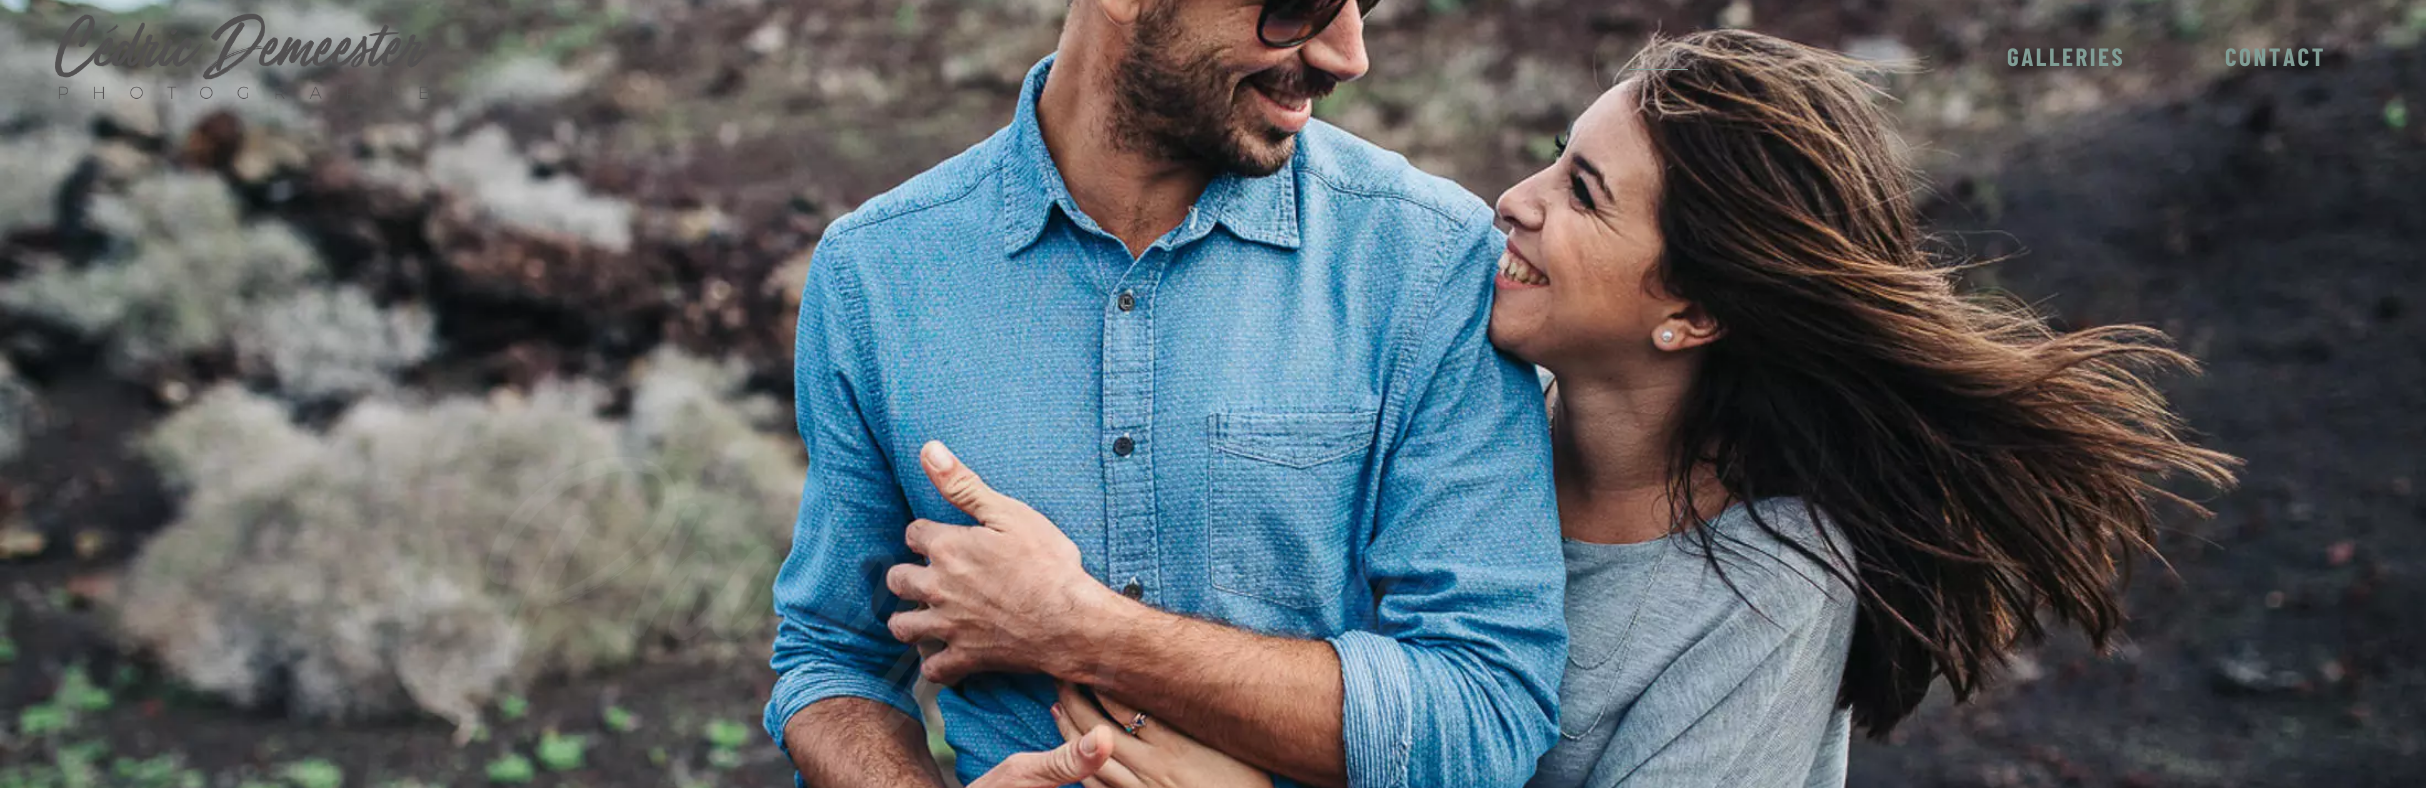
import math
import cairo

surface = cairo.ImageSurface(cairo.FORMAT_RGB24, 2426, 788)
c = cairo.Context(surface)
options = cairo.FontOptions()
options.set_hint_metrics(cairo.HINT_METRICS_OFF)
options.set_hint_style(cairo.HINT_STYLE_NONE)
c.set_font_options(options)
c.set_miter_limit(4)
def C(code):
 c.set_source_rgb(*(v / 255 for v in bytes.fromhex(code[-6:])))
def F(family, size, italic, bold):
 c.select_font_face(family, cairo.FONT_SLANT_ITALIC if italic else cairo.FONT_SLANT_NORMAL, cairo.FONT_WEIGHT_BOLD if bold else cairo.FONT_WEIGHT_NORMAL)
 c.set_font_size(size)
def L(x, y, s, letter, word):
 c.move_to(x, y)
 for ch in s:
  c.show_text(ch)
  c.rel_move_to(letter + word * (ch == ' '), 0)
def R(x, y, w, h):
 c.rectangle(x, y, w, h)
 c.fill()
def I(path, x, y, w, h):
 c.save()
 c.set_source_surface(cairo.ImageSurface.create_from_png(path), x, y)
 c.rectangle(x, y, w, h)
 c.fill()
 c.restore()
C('ffffff')
c.paint()
I('1.png',0,0,2426,788)
I('2.png',486,457,949,282)
I('3.png',55,13,373,86)
F('Barlow Condensed',25,0,1)
C('809e96')
L(2007,66,'GALLERIES',2.5,0)
L(2225,66,'CONTACT',2.5,0)
R(1629,69,59,1)
surface.write_to_png('o.png')
